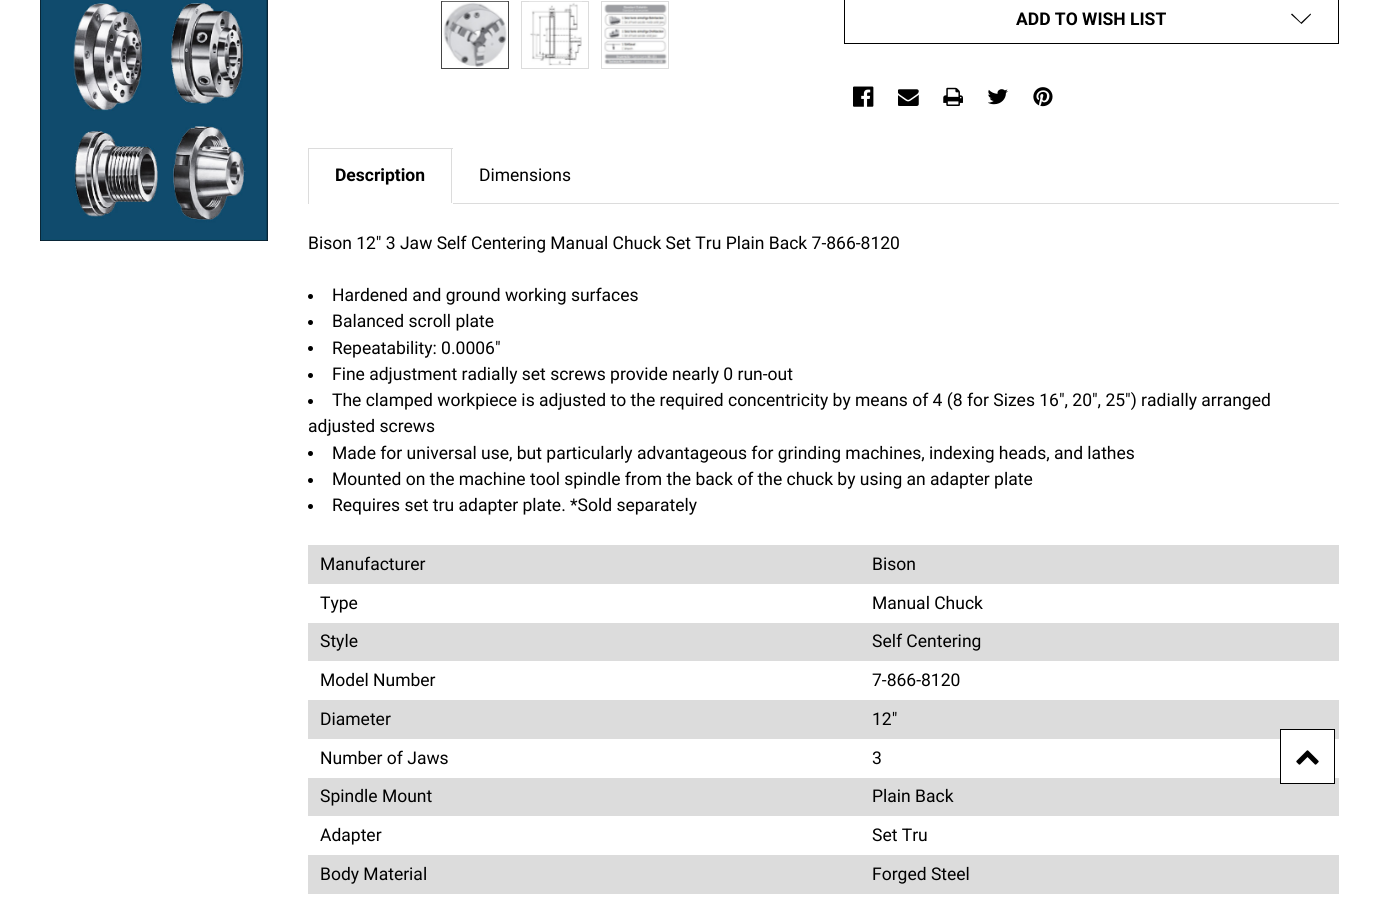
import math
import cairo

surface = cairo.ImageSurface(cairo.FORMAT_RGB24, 1378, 908)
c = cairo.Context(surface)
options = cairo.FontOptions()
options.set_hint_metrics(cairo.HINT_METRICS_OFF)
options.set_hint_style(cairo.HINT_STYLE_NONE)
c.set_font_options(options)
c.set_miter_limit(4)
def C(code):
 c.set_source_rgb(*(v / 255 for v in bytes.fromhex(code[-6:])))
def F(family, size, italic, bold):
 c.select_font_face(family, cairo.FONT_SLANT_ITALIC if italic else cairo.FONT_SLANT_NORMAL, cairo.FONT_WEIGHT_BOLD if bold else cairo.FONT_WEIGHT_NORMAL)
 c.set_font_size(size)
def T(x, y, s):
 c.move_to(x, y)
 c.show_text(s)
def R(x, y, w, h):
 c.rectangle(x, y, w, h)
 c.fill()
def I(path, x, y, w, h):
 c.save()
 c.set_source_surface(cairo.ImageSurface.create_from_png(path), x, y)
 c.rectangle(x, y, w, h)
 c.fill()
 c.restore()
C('ffffff')
c.paint()
I('1.png',40,0,228,241)
c.rectangle(441.5,1.5,67,67)
C('454545')
c.set_line_width(1)
c.stroke()
I('2.png',442,1,66,66)
c.rectangle(521.5,1.5,67,67)
C('dcdcdc')
c.stroke()
I('3.png',529,1,53,65)
c.rectangle(601.5,1.5,67,67)
c.stroke()
I('4.png',604,4,63,61)
c.rectangle(844.5,-.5,494,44)
C('000000')
c.stroke()
F('Roboto',17.5,0,1)
T(1016,25,'ADD TO WISH LIST')
c.set_fill_rule(cairo.FILL_RULE_EVEN_ODD)
c.new_path()
c.move_to(1301,22.5)
c.line_to(1310.5,13.5)
c.line_to(1311,14.5)
c.line_to(1301.5,24)
c.line_to(1291,14.5)
c.line_to(1292,13.5)
c.close_path()
c.fill()
I('5.png',853,86,21,21)
I('6.png',898,89,21,17)
I('7.png',943,87,20,19)
I('8.png',988,89,20,16)
I('9.png',1033,87,20,20)
C('dcdcdc')
R(453,203,886,1)
R(308,148,145,1)
R(451,148,1,56)
C('ffffff')
R(451,203,2,1)
C('dcdcdc')
R(308,148,1,56)
C('000000')
T(335,181,'Description')
F('Roboto',17.5,0,0)
T(479,181,'Dimensions')
T(308,249,'Bison 12" 3 Jaw Self Centering Manual Chuck Set Tru Plain Back 7-866-8120')
c.new_path()
c.arc(310.5,296.5,2.5,0,2 * math.pi)
c.fill()
T(332,301,'Hardened and ground working surfaces')
c.new_path()
c.arc(310.5,322.5,2.5,0,2 * math.pi)
c.fill()
T(332,327,'Balanced scroll plate')
c.new_path()
c.arc(310.5,348.5,2.5,0,2 * math.pi)
c.fill()
T(332,354,'Repeatability: 0.0006"')
c.new_path()
c.arc(310.5,375.5,2.5,0,2 * math.pi)
c.fill()
T(332,380,'Fine adjustment radially set screws provide nearly 0 run-out')
c.new_path()
c.arc(310.5,401.5,2.5,0,2 * math.pi)
c.fill()
T(332,406,'The clamped workpiece is adjusted to the required concentricity by means of 4 (8 for Sizes 16", 20", 25") radially arranged')
T(308,432,'adjusted screws')
c.new_path()
c.arc(310.5,453.5,2.5,0,2 * math.pi)
c.fill()
T(332,459,'Made for universal use, but particularly advantageous for grinding machines, indexing heads, and lathes')
c.new_path()
c.arc(310.5,480.5,2.5,0,2 * math.pi)
c.fill()
T(332,485,'Mounted on the machine tool spindle from the back of the chuck by using an adapter plate')
c.new_path()
c.arc(310.5,506.5,2.5,0,2 * math.pi)
c.fill()
T(332,511,'Requires set tru adapter plate. *Sold separately')
C('dcdcdc')
R(308,545,1031,349)
C('000000')
T(320,570,'Manufacturer')
T(872,570,'Bison')
C('ffffff')
R(308,584,1031,39)
C('000000')
T(320,609,'Type')
T(872,609,'Manual Chuck')
T(320,647,'Style')
T(872,647,'Self Centering')
C('ffffff')
R(308,661,1031,39)
C('000000')
T(320,686,'Model Number')
T(872,686,'7-866-8120')
T(320,725,'Diameter')
T(872,725,'12"')
C('ffffff')
R(308,739,1031,39)
C('000000')
T(320,764,'Number of Jaws')
T(872,764,'3')
T(320,802,'Spindle Mount')
T(872,802,'Plain Back')
C('ffffff')
R(308,816,1031,39)
C('000000')
T(320,841,'Adapter')
T(872,841,'Set Tru')
T(320,880,'Body Material')
T(872,880,'Forged Steel')
C('ffffff')
c.rectangle(1280.5,729.5,54,54)
c.fill_preserve()
C('000000')
c.stroke()
I('10.png',1296,750,23,15)
surface.write_to_png('o.png')
